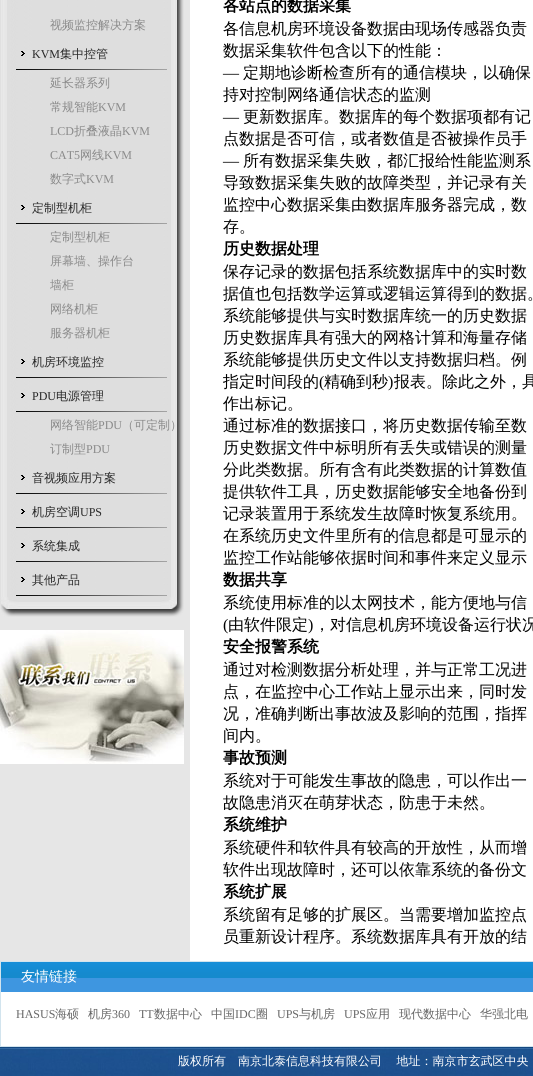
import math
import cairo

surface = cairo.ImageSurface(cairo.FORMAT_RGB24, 533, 1076)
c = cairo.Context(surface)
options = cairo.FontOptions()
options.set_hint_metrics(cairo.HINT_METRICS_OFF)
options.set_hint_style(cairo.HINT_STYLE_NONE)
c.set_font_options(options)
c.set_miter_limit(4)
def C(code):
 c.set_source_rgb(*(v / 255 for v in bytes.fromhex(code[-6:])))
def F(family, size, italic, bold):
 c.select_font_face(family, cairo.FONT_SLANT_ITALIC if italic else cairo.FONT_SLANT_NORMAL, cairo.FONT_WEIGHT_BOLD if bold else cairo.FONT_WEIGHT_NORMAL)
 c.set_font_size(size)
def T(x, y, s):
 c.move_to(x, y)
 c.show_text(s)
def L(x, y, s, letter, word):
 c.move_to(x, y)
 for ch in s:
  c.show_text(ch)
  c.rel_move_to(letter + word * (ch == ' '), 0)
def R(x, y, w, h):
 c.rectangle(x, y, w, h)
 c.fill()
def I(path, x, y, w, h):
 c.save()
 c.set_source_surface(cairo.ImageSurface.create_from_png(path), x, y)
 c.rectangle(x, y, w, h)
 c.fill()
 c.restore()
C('ffffff')
c.paint()
C('e6e6e6')
R(0,0,190,961)
I('1.png',0,0,184,597)
F('WenQuanYi Zen Hei Medium',12,0,0)
C('8a8a8a')
T(50,29,'视频监控解决方案')
I('2.png',16,69,151,1)
I('3.png',21,51,4,5)
F('Liberation Serif',12,0,0)
C('272727')
T(32,58,'KVM')
F('WenQuanYi Zen Hei Medium',12,0,0)
T(60,58,'集中控管')
C('8a8a8a')
T(50,87,'延长器系列')
T(50,111,'常规智能')
F('Liberation Serif',12,0,0)
T(98,111,'KVM')
T(50,135,'LCD')
F('WenQuanYi Zen Hei Medium',12,0,0)
T(74,135,'折叠液晶')
F('Liberation Serif',12,0,0)
T(122,135,'KVM')
T(50,159,'CAT5')
F('WenQuanYi Zen Hei Medium',12,0,0)
T(80,159,'网线')
F('Liberation Serif',12,0,0)
T(104,159,'KVM')
F('WenQuanYi Zen Hei Medium',12,0,0)
T(50,183,'数字式')
F('Liberation Serif',12,0,0)
T(86,183,'KVM')
I('2.png',16,223,151,1)
I('3.png',21,205,4,5)
F('WenQuanYi Zen Hei Medium',12,0,0)
C('272727')
T(32,212,'定制型机柜')
C('8a8a8a')
T(50,241,'定制型机柜')
T(50,265,'屏幕墙、操作台')
T(50,289,'墙柜')
T(50,313,'网络机柜')
T(50,337,'服务器机柜')
I('2.png',16,377,151,1)
I('3.png',21,359,4,5)
C('272727')
T(32,366,'机房环境监控')
I('2.png',16,411,151,1)
I('3.png',21,393,4,5)
F('Liberation Serif',12,0,0)
T(32,400,'PDU')
F('WenQuanYi Zen Hei Medium',12,0,0)
T(56,400,'电源管理')
C('8a8a8a')
T(50,429,'网络智能')
F('Liberation Serif',12,0,0)
T(98,429,'PDU')
F('WenQuanYi Zen Hei Medium',12,0,0)
T(122,429,'（可定制）')
T(50,453,'订制型')
F('Liberation Serif',12,0,0)
T(86,453,'PDU')
I('2.png',16,493,151,1)
I('3.png',21,475,4,5)
F('WenQuanYi Zen Hei Medium',12,0,0)
C('272727')
T(32,482,'音视频应用方案')
I('2.png',16,527,151,1)
I('3.png',21,509,4,5)
T(32,516,'机房空调')
F('Liberation Serif',12,0,0)
T(80,516,'UPS')
I('2.png',16,561,151,1)
I('3.png',21,543,4,5)
F('WenQuanYi Zen Hei Medium',12,0,0)
T(32,550,'系统集成')
I('2.png',16,595,151,1)
I('3.png',21,577,4,5)
T(32,584,'其他产品')
I('4.png',0,597,184,20)
I('5.png',0,630,184,134)
F('WenQuanYi Zen Hei',16,0,1)
C('000000')
T(223,11,'各站点的数据采集')
F('WenQuanYi Zen Hei Medium',16,0,0)
T(223,34,'各信息机房环境设备数据由现场传感器负责')
T(223,56,'数据采集软件包含以下的性能：')
F('Liberation Serif',16,0,0)
T(223,78,'—')
F('WenQuanYi Zen Hei Medium',16,0,0)
T(243,78,'定期地诊断检查所有的通信模块，以确保')
T(223,100,'持对控制网络通信状态的监测')
F('Liberation Serif',16,0,0)
T(223,122,'—')
F('WenQuanYi Zen Hei Medium',16,0,0)
T(243,122,'更新数据库。数据库的每个数据项都有记')
T(223,144,'点数据是否可信，或者数值是否被操作员手')
F('Liberation Serif',16,0,0)
T(223,166,'—')
F('WenQuanYi Zen Hei Medium',16,0,0)
T(243,166,'所有数据采集失败，都汇报给性能监测系')
T(223,188,'导致数据采集失败的故障类型，并记录有关')
T(223,210,'监控中心数据采集由数据库服务器完成，数')
T(223,232,'存。')
F('WenQuanYi Zen Hei',16,0,1)
T(223,254,'历史数据处理')
F('WenQuanYi Zen Hei Medium',16,0,0)
T(223,277,'保存记录的数据包括系统数据库中的实时数')
T(223,299,'据值也包括数学运算或逻辑运算得到的数据。')
T(223,321,'系统能够提供与实时数据库统一的历史数据')
T(223,343,'历史数据库具有强大的网格计算和海量存储')
T(223,365,'系统能够提供历史文件以支持数据归档。例')
T(223,387,'指定时间段的')
F('Liberation Serif',16,0,0)
T(319,387,'(')
F('WenQuanYi Zen Hei Medium',16,0,0)
T(324,387,'精确到秒')
F('Liberation Serif',16,0,0)
T(388,387,')')
F('WenQuanYi Zen Hei Medium',16,0,0)
T(394,387,'报表。除此之外，具')
T(223,409,'作出标记。')
T(223,431,'通过标准的数据接口，将历史数据传输至数')
T(223,453,'历史数据文件中标明所有丢失或错误的测量')
T(223,475,'分此类数据。所有含有此类数据的计算数值')
T(223,497,'提供软件工具，历史数据能够安全地备份到')
T(223,519,'记录装置用于系统发生故障时恢复系统用。')
T(223,541,'在系统历史文件里所有的信息都是可显示的')
T(223,563,'监控工作站能够依据时间和事件来定义显示')
F('WenQuanYi Zen Hei',16,0,1)
T(223,585,'数据共享')
F('WenQuanYi Zen Hei Medium',16,0,0)
T(223,608,'系统使用标准的以太网技术，能方便地与信')
F('Liberation Serif',16,0,0)
T(223,630,'(')
F('WenQuanYi Zen Hei Medium',16,0,0)
T(228,630,'由软件限定')
F('Liberation Serif',16,0,0)
T(308,630,')')
F('WenQuanYi Zen Hei Medium',16,0,0)
T(314,630,'，对信息机房环境设备运行状况')
F('WenQuanYi Zen Hei',16,0,1)
T(223,652,'安全报警系统')
F('WenQuanYi Zen Hei Medium',16,0,0)
T(223,675,'通过对检测数据分析处理，并与正常工况进')
T(223,697,'点，在监控中心工作站上显示出来，同时发')
T(223,719,'况，准确判断出事故波及影响的范围，指挥')
T(223,741,'间内。')
F('WenQuanYi Zen Hei',16,0,1)
T(223,763,'事故预测')
F('WenQuanYi Zen Hei Medium',16,0,0)
T(223,786,'系统对于可能发生事故的隐患，可以作出一')
T(223,808,'故隐患消灭在萌芽状态，防患于未然。')
F('WenQuanYi Zen Hei',16,0,1)
T(223,830,'系统维护')
F('WenQuanYi Zen Hei Medium',16,0,0)
T(223,853,'系统硬件和软件具有较高的开放性，从而增')
T(223,875,'软件出现故障时，还可以依靠系统的备份文')
F('WenQuanYi Zen Hei',16,0,1)
T(223,897,'系统扩展')
F('WenQuanYi Zen Hei Medium',16,0,0)
T(223,920,'系统留有足够的扩展区。当需要增加监控点')
T(223,942,'员重新设计程序。系统数据库具有开放的结')
c.rectangle(.5,961.5,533,85)
C('d2e4ee')
c.set_line_width(1)
c.stroke()
I('6.png',1,962,532,30)
F('WenQuanYi Zen Hei Medium',14,0,0)
C('ffffff')
T(21,981,'友情链接')
F('Liberation Serif',12,0,0)
C('666666')
T(16,1018,'HASUS')
F('WenQuanYi Zen Hei Medium',12,0,0)
T(55,1018,'海硕')
T(88,1018,'机房')
F('Liberation Serif',12,0,0)
T(112,1018,'360')
T(139,1018,'TT')
F('WenQuanYi Zen Hei Medium',12,0,0)
T(154,1018,'数据中心')
T(211,1018,'中国')
F('Liberation Serif',12,0,0)
T(235,1018,'IDC')
F('WenQuanYi Zen Hei Medium',12,0,0)
T(256,1018,'圈')
F('Liberation Serif',12,0,0)
T(277,1018,'UPS')
F('WenQuanYi Zen Hei Medium',12,0,0)
T(299,1018,'与机房')
F('Liberation Serif',12,0,0)
T(344,1018,'UPS')
F('WenQuanYi Zen Hei Medium',12,0,0)
T(366,1018,'应用')
T(399,1018,'现代数据中心')
T(480,1018,'华强北电')
I('7.png',0,1047,533,29)
C('ffffff')
L(178,1065,'版权所有　南京北泰信息科技有限公司　 地址：南京市玄武区中央',0,-1)
surface.write_to_png('o.png')
